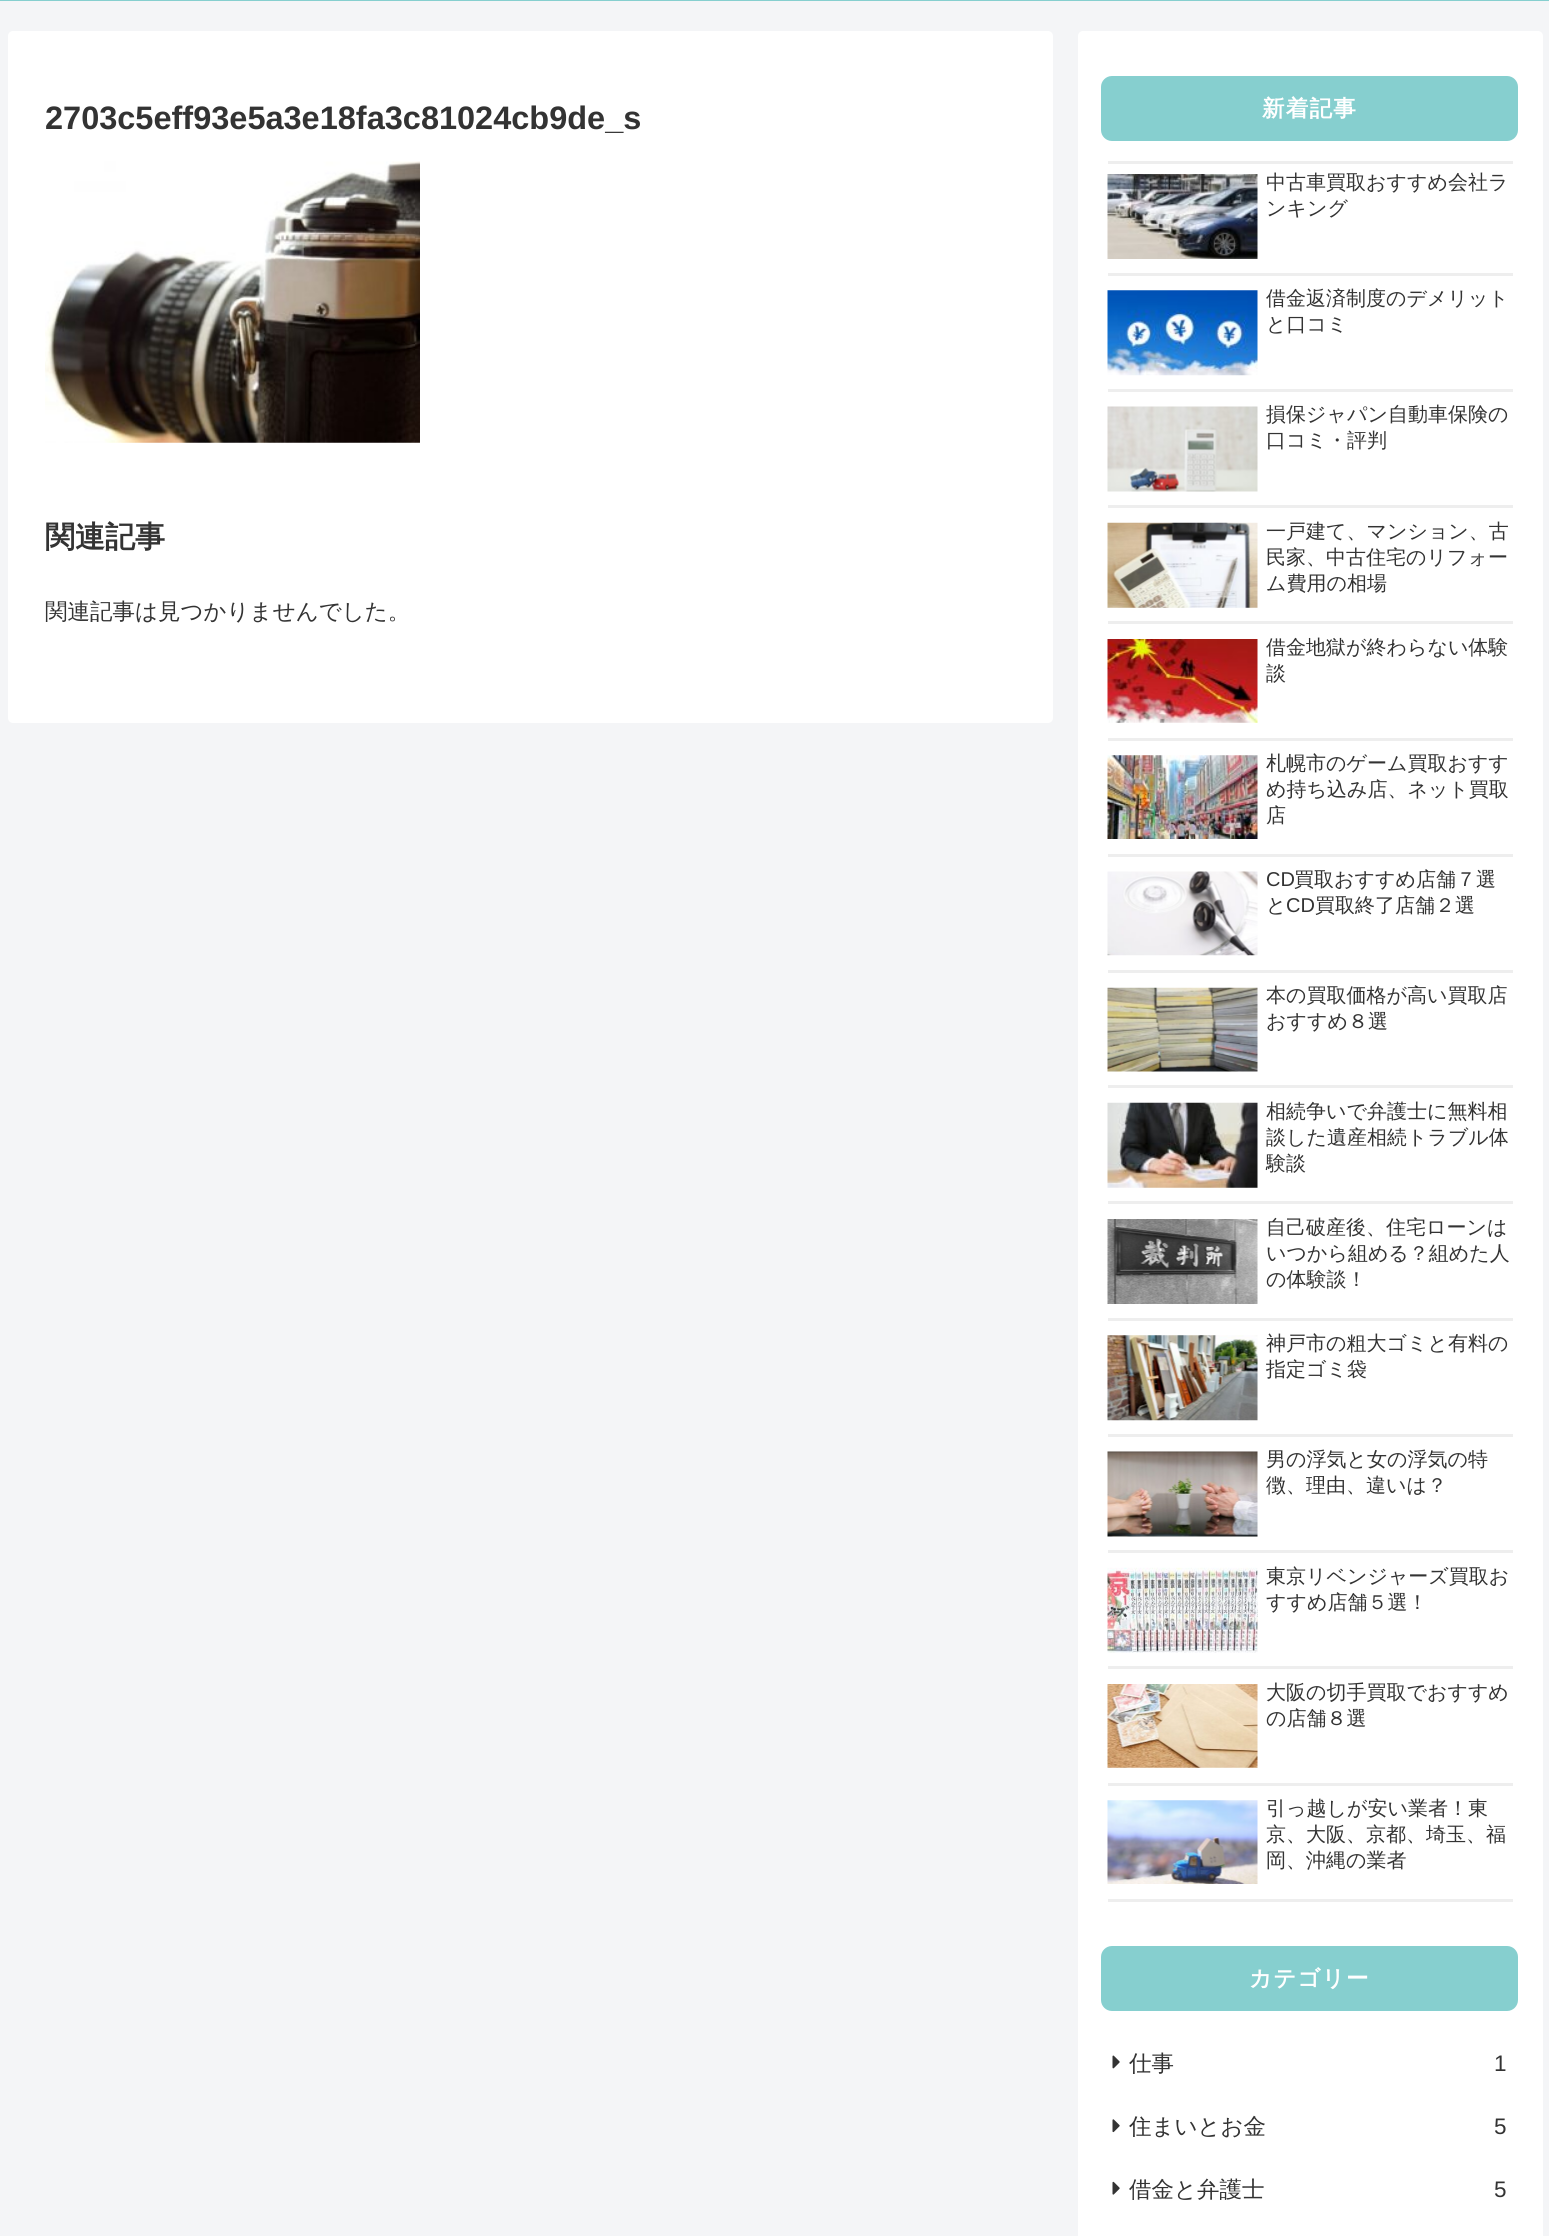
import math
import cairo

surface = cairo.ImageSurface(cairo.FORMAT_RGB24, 1549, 2236)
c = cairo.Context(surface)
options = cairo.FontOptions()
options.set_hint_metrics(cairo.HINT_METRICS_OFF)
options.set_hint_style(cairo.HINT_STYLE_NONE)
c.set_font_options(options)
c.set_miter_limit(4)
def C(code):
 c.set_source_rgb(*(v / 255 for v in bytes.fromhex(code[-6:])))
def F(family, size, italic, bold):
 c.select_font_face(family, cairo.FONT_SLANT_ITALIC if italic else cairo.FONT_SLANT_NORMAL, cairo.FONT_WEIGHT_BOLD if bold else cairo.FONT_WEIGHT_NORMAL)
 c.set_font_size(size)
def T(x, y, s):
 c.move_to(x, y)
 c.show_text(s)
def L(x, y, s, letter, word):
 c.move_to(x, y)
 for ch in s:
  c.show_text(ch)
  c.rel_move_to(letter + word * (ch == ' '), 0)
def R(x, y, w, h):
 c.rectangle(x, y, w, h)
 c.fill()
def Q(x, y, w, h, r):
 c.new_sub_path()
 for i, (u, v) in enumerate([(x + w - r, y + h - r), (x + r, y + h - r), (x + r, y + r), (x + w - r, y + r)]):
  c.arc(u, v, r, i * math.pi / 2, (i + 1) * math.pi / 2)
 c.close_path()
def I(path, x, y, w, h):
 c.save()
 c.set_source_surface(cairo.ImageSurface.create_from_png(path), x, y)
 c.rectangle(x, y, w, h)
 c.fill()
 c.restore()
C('f4f5f7')
c.paint()
C('86cfcf')
R(0,0,1549,1)
C('ffffff')
Q(8,31,1045,692,5)
c.fill()
F('Liberation Sans',32.5,0,1)
C('333333')
T(45,129,'2703c5eff93e5a3e18fa3c81024cb9de_s')
I('1.png',45,161,375,282)
F('WenQuanYi Zen Hei',30,0,1)
T(45,547,'関連記事')
F('WenQuanYi Zen Hei Medium',22.5,0,0)
T(45,619,'関連記事は見つかりませんでした。')
C('ffffff')
Q(1078,31,465,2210,5)
c.fill()
C('86cfcf')
Q(1101,76,417,65,11)
c.fill()
F('WenQuanYi Zen Hei',22.5,0,1)
C('ffffff')
L(1262,116,'新着記事',1.25,0)
C('eeeeee')
R(1108,161,405,3)
R(1108,273,405,3)
I('2.png',1107,174,151,85)
F('WenQuanYi Zen Hei Medium',20,0,0)
C('333333')
T(1266,189,'中古車買取おすすめ会社ラ')
T(1266,215,'ンキング')
C('eeeeee')
R(1108,389,405,3)
I('3.png',1107,290,151,86)
C('333333')
T(1266,305,'借金返済制度のデメリット')
T(1266,331,'と口コミ')
C('eeeeee')
R(1108,505,405,3)
I('4.png',1107,406,151,86)
C('333333')
T(1266,421,'損保ジャパン自動車保険の')
T(1266,447,'口コミ・評判')
C('eeeeee')
R(1108,621,405,3)
I('5.png',1107,522,151,86)
C('333333')
T(1266,538,'一戸建て、マンション、古')
T(1266,564,'民家、中古住宅のリフォー')
T(1266,590,'ム費用の相場')
C('eeeeee')
R(1108,738,405,3)
I('6.png',1107,639,151,84)
C('333333')
T(1266,654,'借金地獄が終わらない体験')
T(1266,680,'談')
C('eeeeee')
R(1108,854,405,3)
I('7.png',1107,755,151,84)
C('333333')
T(1266,770,'札幌市のゲーム買取おすす')
T(1266,796,'め持ち込み店、ネット買取')
T(1266,822,'店')
C('eeeeee')
R(1108,970,405,3)
I('8.png',1107,871,151,85)
F('Liberation Sans',20,0,0)
C('333333')
T(1266,886,'CD')
F('WenQuanYi Zen Hei Medium',20,0,0)
T(1294,886,'買取おすすめ店舗７選')
T(1266,912,'と')
F('Liberation Sans',20,0,0)
T(1286,912,'CD')
F('WenQuanYi Zen Hei Medium',20,0,0)
T(1315,912,'買取終了店舗２選')
C('eeeeee')
R(1108,1085,405,3)
I('9.png',1107,987,151,85)
C('333333')
T(1266,1002,'本の買取価格が高い買取店')
T(1266,1028,'おすすめ８選')
C('eeeeee')
R(1108,1201,405,3)
I('10.png',1107,1102,151,86)
C('333333')
T(1266,1118,'相続争いで弁護士に無料相')
T(1266,1144,'談した遺産相続トラブル体')
T(1266,1170,'験談')
C('eeeeee')
R(1108,1318,405,3)
I('11.png',1107,1219,151,85)
C('333333')
T(1266,1234,'自己破産後、住宅ローンは')
T(1266,1260,'いつから組める？組めた人')
T(1266,1286,'の体験談！')
C('eeeeee')
R(1108,1434,405,3)
I('12.png',1107,1335,151,86)
C('333333')
T(1266,1350,'神戸市の粗大ゴミと有料の')
T(1266,1376,'指定ゴミ袋')
C('eeeeee')
R(1108,1550,405,3)
I('13.png',1107,1451,151,86)
C('333333')
T(1266,1466,'男の浮気と女の浮気の特')
T(1266,1492,'徴、理由、違いは？')
C('eeeeee')
R(1108,1666,405,3)
I('14.png',1107,1567,151,86)
C('333333')
T(1266,1583,'東京リベンジャーズ買取お')
T(1266,1609,'すすめ店舗５選！')
C('eeeeee')
R(1108,1783,405,3)
I('15.png',1107,1684,151,84)
C('333333')
T(1266,1699,'大阪の切手買取でおすすめ')
T(1266,1725,'の店舗８選')
C('eeeeee')
R(1108,1899,405,3)
I('16.png',1107,1800,151,84)
C('333333')
T(1266,1815,'引っ越しが安い業者！東')
T(1266,1841,'京、大阪、京都、埼玉、福')
T(1266,1867,'岡、沖縄の業者')
C('86cfcf')
Q(1101,1946,417,65,11)
c.fill()
F('WenQuanYi Zen Hei',22.5,0,1)
C('ffffff')
L(1249,1986,'カテゴリー',1.25,0)
I('17.png',1112,2055,8,14)
F('WenQuanYi Zen Hei Medium',22.5,0,0)
C('333333')
T(1129,2071,'仕事')
F('Liberation Sans',22.5,0,0)
T(1494,2071,'1')
I('18.png',1112,2119,8,14)
F('WenQuanYi Zen Hei Medium',22.5,0,0)
T(1129,2134,'住まいとお金')
F('Liberation Sans',22.5,0,0)
T(1494,2134,'5')
I('19.png',1112,2181,8,14)
F('WenQuanYi Zen Hei Medium',22.5,0,0)
T(1129,2197,'借金と弁護士')
F('Liberation Sans',22.5,0,0)
T(1494,2197,'5')
surface.write_to_png('o.png')
